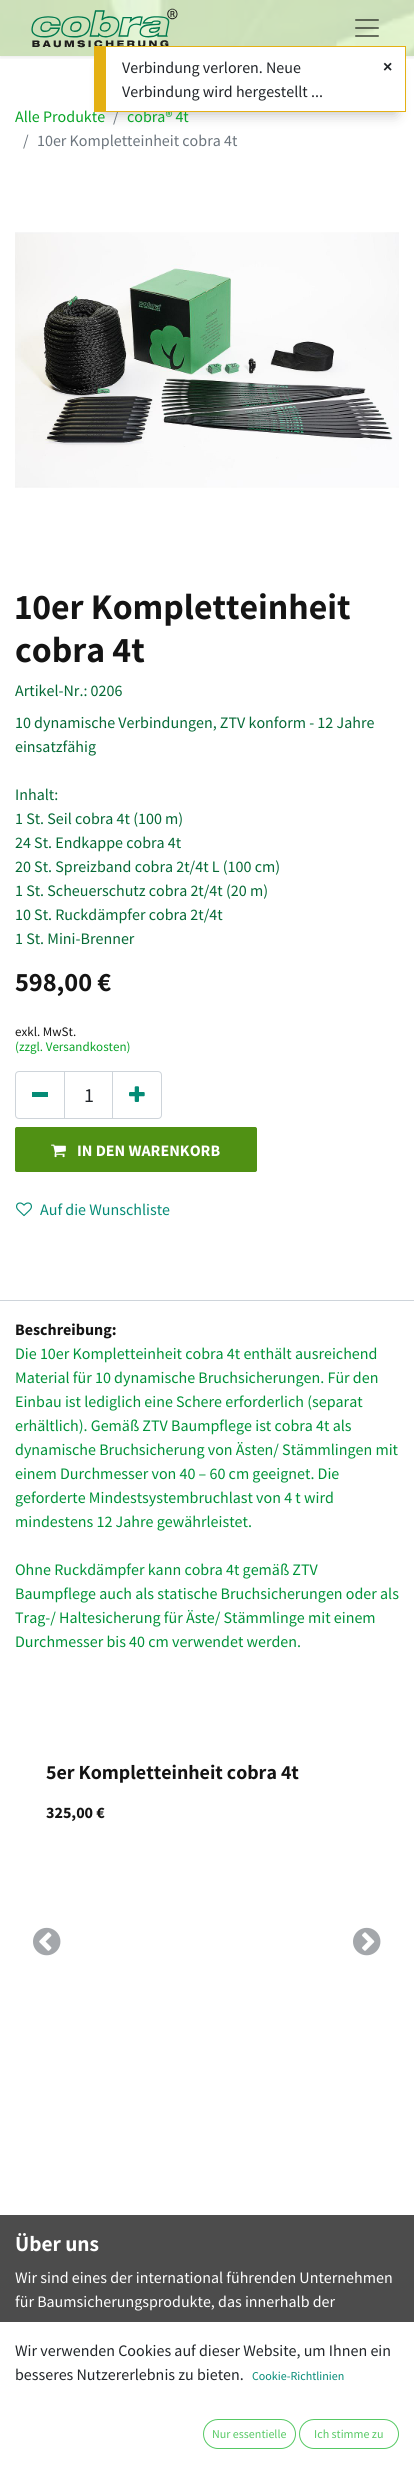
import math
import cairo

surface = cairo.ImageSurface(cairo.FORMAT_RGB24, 414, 2465)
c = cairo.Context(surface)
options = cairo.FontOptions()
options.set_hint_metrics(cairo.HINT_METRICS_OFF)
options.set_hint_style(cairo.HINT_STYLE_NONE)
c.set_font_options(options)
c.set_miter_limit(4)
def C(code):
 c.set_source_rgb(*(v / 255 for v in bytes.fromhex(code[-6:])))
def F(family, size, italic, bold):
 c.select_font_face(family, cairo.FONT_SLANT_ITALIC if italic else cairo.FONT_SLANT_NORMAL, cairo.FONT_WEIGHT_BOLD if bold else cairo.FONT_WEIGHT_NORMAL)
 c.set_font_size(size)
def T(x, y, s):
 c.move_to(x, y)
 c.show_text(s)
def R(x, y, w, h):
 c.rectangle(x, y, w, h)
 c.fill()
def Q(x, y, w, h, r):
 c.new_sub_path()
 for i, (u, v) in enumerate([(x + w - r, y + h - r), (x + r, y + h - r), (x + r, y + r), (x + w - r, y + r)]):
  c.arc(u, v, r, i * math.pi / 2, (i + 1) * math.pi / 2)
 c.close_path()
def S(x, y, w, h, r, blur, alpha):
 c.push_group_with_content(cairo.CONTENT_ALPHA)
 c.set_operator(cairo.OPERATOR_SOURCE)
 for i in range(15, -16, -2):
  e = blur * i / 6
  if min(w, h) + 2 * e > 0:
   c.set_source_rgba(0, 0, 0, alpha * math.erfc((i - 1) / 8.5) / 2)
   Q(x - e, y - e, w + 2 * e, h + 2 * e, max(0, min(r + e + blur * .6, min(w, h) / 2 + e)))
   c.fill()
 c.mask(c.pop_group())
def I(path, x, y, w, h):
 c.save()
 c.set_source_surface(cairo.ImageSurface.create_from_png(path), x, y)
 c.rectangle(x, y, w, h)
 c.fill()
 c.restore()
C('ffffff')
c.paint()
I('1.png',0,0,414,56)
c.save()
c.rectangle(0,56,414,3)
c.clip()
C('000000')
S(0,2,414,56,0,2,.07)
c.restore()
c.set_source_rgba(0.918,0.965,0.851,0.85)
R(0,0,414,56)
I('2.png',31,8,147,40)
C('000000')
S(104,68,292,46,0,7,.25)
F('Source Sans Pro',16,0,0)
C('6c757d')
T(113,122,'/')
C('08a427')
T(127,122,'cobra® 4t')
C('ffffff')
R(106,47,299,64)
C('e4b013')
R(106,46,300,1)
R(405,46,1,66)
R(106,111,300,1)
C('08a427')
T(15,122,'Alle Produkte')
C('e4b013')
R(94,46,12,66)
C('212529')
T(122,73,'Verbindung verloren. Neue')
T(122,97,'Verbindung wird hergestellt ...')
F('Liberation Sans',16,0,1)
T(383,72,'×')
I('3.png',355,19,24,18)
F('Source Sans Pro',16,0,0)
C('6c757d')
T(23,146,'/')
T(37,146,'10er Kompletteinheit cobra 4t')
I('4.png',15,232,384,256)
F('Assistant',36,0,1)
C('141414')
T(15,619,'10er Kompletteinheit')
T(15,662,'cobra 4t')
F('Source Sans Pro',16,0,0)
C('056936')
T(15,696,'Artikel-Nr.: 0206')
T(15,728,'10 dynamische Verbindungen, ZTV konform - 12 Jahre')
T(15,752,'einsatzfähig')
T(15,800,'Inhalt:')
T(15,824,'1 St. Seil cobra 4t (100 m)')
T(15,848,'24 St. Endkappe cobra 4t')
T(15,872,'20 St. Spreizband cobra 2t/4t L (100 cm)')
T(15,896,'1 St. Scheuerschutz cobra 2t/4t (20 m)')
T(15,920,'10 St. Ruckdämpfer cobra 2t/4t')
T(15,944,'1 St. Mini-Brenner')
F('Assistant',26.5,0,1)
C('141414')
T(15,991,'598,00 €')
F('Source Sans Pro',13,0,0)
T(15,1036,'exkl. MwSt.')
C('08a427')
T(15,1051,'(zzgl. Versandkosten)')
c.rectangle(64.5,1071.5,48,47)
C('ced4da')
c.set_line_width(1)
c.stroke()
c.new_path()
c.move_to(19,1071.5)
c.line_to(64.5,1071.5)
c.line_to(64.5,1118.5)
c.line_to(19,1118.5)
c.curve_to(17,1118.5,15.5,1117,15.5,1115)
c.line_to(15.5,1075)
c.curve_to(15.5,1073,17,1071.5,19,1071.5)
c.close_path()
c.stroke()
C('048b76')
R(32,1092,16,5)
F('Source Sans Pro',20,0,0)
C('212529')
T(84,1102,'1')
c.new_path()
c.move_to(112.5,1071.5)
c.line_to(158,1071.5)
c.curve_to(160,1071.5,161.5,1073,161.5,1075)
c.line_to(161.5,1115)
c.curve_to(161.5,1117,160,1118.5,158,1118.5)
c.line_to(112.5,1118.5)
c.close_path()
C('ced4da')
c.stroke()
I('5.png',129,1086,16,16)
C('509114')
Q(15.5,1127.5,241,44,1.5)
c.fill_preserve()
c.stroke()
I('6.png',51,1144,15,14)
F('Source Sans Pro',16,0,1)
C('ffffff')
T(77,1156,'IN DEN WARENKORB')
I('7.png',16,1202,16,15)
F('Source Sans Pro',16,0,0)
C('048b76')
T(40,1215,'Auf die Wunschliste')
C('ced4da')
R(0,1300,414,1)
F('Source Sans Pro',16,0,1)
C('141414')
T(15,1335,'Beschreibung:')
F('Source Sans Pro',16,0,0)
C('009239')
T(15,1359,'Die 10er Kompletteinheit cobra 4t enthält ausreichend')
T(15,1383,'Material für 10 dynamische Bruchsicherungen. Für den')
T(15,1407,'Einbau ist lediglich eine Schere erforderlich (separat')
T(15,1431,'erhältlich). Gemäß ZTV Baumpflege ist cobra 4t als')
T(15,1455,'dynamische Bruchsicherung von Ästen/ Stämmlingen mit')
T(15,1479,'einem Durchmesser von 40 – 60 cm geeignet. Die')
T(15,1503,'geforderte Mindestsystembruchlast von 4 t wird')
T(15,1527,'mindestens 12 Jahre gewährleistet.')
T(15,1575,'Ohne Ruckdämpfer kann cobra 4t gemäß ZTV')
T(15,1599,'Baumpflege auch als statische Bruchsicherungen oder als')
T(15,1623,'Trag-/ Haltesicherung für Äste/ Stämmlinge mit einem')
T(15,1647,'Durchmesser bis 40 cm verwendet werden.')
F('Assistant',20,0,1)
C('141414')
T(46,1779,'5er Kompletteinheit cobra 4t')
F('Source Sans Pro',16,0,1)
T(46,1818,'325,00 €')
I('8.png',33,1927,28,29)
I('9.png',353,1927,28,29)
C('4c4c4c')
R(0,2215,414,107)
F('Assistant',21.5,0,1)
C('ffffff')
T(15,2251,'Über uns')
F('Source Sans Pro',16,0,0)
T(15,2283,'Wir sind eines der international führenden Unternehmen')
T(15,2307,'für Baumsicherungsprodukte, das innerhalb der')
C('212529')
T(15,2356,'Wir verwenden Cookies auf dieser Website, um Ihnen ein')
T(15,2380,'besseres Nutzererlebnis zu bieten.')
F('Source Sans Pro',12,0,0)
C('048b76')
T(252,2380,'Cookie-Richtlinien')
Q(203.5,2419.5,92,29,14.5)
C('56c964')
c.stroke()
T(212,2438,'Nur essentielle')
Q(299.5,2419.5,99,29,14.5)
c.stroke()
T(314,2438,'Ich stimme zu')
surface.write_to_png('o.png')
